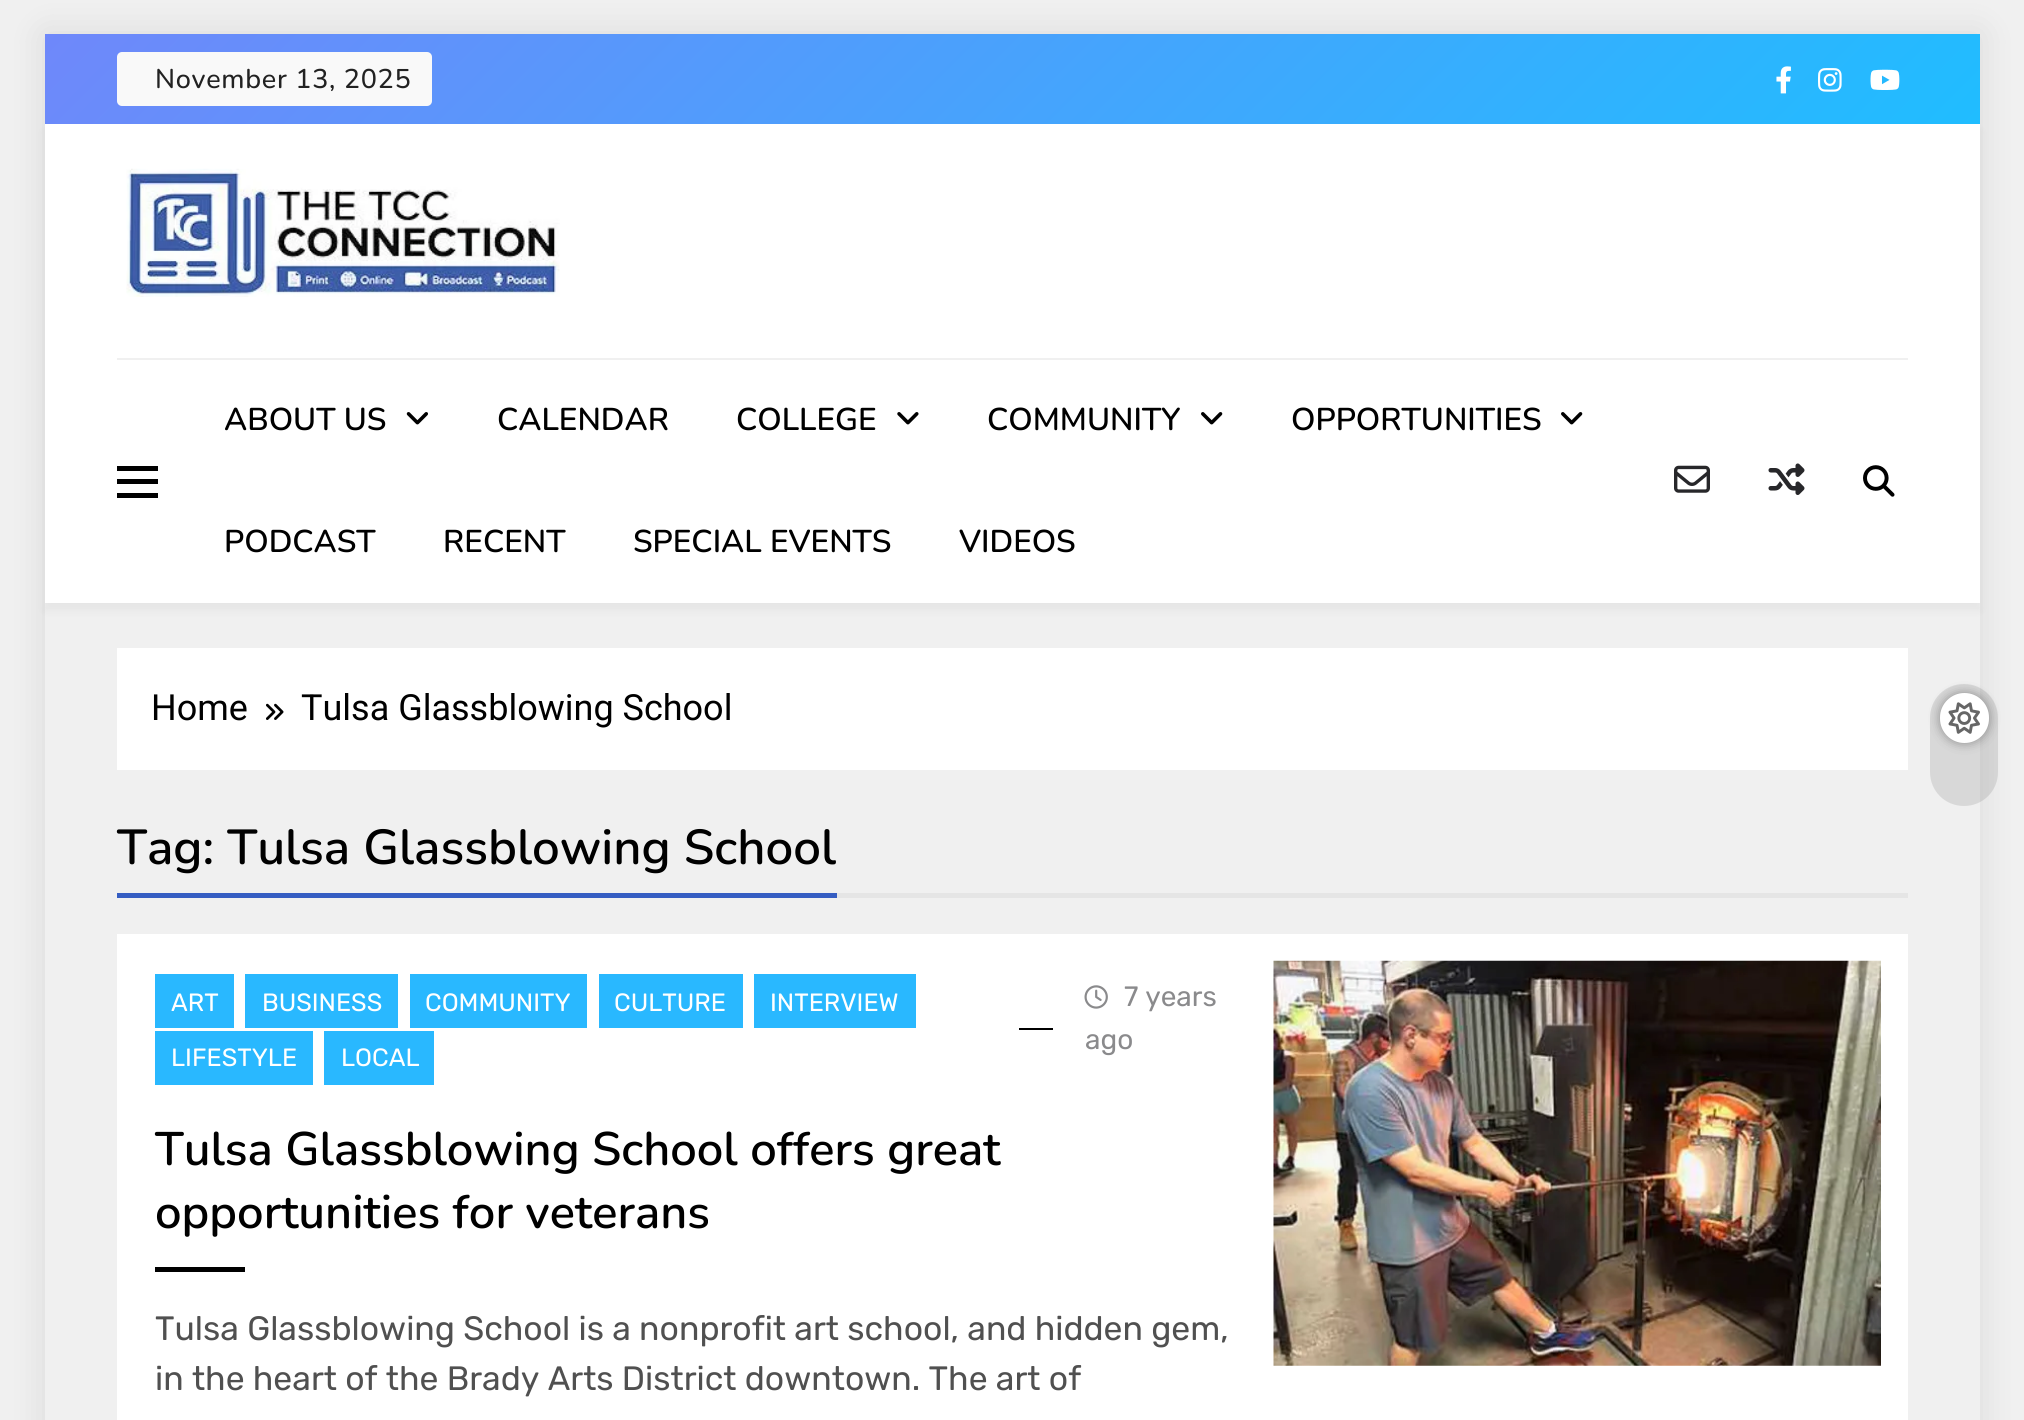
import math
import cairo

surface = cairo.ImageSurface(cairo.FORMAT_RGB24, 2024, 1420)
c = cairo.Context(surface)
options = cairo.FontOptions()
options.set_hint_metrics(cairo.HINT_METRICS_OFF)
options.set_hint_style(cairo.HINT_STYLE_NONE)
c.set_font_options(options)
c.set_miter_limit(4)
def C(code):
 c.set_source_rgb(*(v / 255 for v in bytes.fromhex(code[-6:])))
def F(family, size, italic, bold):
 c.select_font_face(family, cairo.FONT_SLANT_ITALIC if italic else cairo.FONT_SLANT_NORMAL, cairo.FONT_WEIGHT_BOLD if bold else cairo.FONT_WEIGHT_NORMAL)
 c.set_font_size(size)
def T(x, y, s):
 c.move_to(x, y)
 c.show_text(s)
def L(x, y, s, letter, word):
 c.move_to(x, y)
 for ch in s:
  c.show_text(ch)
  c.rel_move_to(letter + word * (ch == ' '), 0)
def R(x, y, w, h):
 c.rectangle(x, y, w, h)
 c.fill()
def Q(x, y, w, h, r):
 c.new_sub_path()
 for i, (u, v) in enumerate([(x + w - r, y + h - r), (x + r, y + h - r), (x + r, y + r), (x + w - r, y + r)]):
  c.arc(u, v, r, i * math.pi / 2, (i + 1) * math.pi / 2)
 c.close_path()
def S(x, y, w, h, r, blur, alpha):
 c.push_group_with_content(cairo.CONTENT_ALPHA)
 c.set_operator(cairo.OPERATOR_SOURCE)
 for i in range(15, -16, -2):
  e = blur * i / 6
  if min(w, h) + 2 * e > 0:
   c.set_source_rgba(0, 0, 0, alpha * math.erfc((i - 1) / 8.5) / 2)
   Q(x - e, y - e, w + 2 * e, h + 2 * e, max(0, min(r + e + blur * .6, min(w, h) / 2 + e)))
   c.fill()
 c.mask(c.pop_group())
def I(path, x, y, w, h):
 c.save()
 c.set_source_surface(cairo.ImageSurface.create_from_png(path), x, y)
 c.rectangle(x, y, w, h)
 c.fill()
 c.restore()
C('f0f0f0')
c.paint()
c.save()
c.set_fill_rule(cairo.FILL_RULE_EVEN_ODD)
c.new_path()
c.move_to(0,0)
c.line_to(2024,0)
c.line_to(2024,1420)
c.line_to(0,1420)
c.close_path()
c.move_to(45,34)
c.line_to(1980,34)
c.line_to(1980,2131)
c.line_to(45,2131)
c.close_path()
c.clip()
C('000000')
S(45,34,1935,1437,0,17,.1)
c.restore()
gradient = cairo.LinearGradient(506,-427,1519,585)
gradient.add_color_stop_rgba(0,0.435,0.533,0.98,1)
gradient.add_color_stop_rgba(1,0.125,0.741,1,1)
c.set_source(gradient)
R(45,34,1935,90)
C('f9f9f9')
Q(117,52,315,54,5)
c.fill()
F('Nunito Medium',27,0,0)
C('222222')
L(155,88,'November 13, 2025',.7,0)
I('1.png',1776,66,15,28)
I('2.png',1818,68,24,24)
I('3.png',1870,69,30,21)
C('000000')
S(45,131,1935,479,0,4.5,.05)
C('ffffff')
R(45,124,1935,479)
I('4.png',126,168,434,129)
C('f0f0f0')
R(117,358,1791,2)
C('000000')
R(117,466,41,5)
R(117,479,41,5)
R(117,493,41,5)
F('Nunito SemiBold',31.5,0,0)
T(224,430,'ABOUT US')
I('5.png',406,412,22,13)
T(497,430,'CALENDAR')
T(736,430,'COLLEGE')
I('6.png',897,412,22,13)
T(987,430,'COMMUNITY')
I('7.png',1201,412,22,13)
T(1291,430,'OPPORTUNITIES')
I('7.png',1561,412,22,13)
T(224,552,'PODCAST')
T(443,552,'RECENT')
T(633,552,'SPECIAL EVENTS')
T(959,552,'VIDEOS')
I('8.png',1674,465,36,28)
I('9.png',1768,463,37,32)
I('10.png',1863,465,32,32)
c.set_source_rgba(0,0,0,0.1)
c.new_path()
c.move_to(1998,718)
c.line_to(1998,772)
c.curve_to(1998,791,1983,806,1964,806)
c.curve_to(1945,806,1930,791,1930,772)
c.line_to(1930,718)
c.curve_to(1930,699,1945,684,1964,684)
c.curve_to(1983,684,1998,699,1998,718)
c.close_path()
c.fill()
C('000000')
S(1940,693,49,50,24.5,5.5,.35)
C('ffffff')
Q(1940,693,49,50,24.5)
c.fill()
I('11.png',1948,702,32,32)
R(117,648,1791,122)
F('Roboto',36,0,0)
C('000000')
T(151,720,'Home')
I('12.png',266,703,18,17)
T(301,720,'Tulsa Glassblowing School')
C('e5e5e5')
R(837,893,1071,5)
C('355dc2')
R(117,893,720,5)
F('Nunito SemiBold',49.1,0,0)
C('000000')
T(117,864,'Tag: Tulsa Glassblowing School')
C('ffffff')
R(117,934,1791,486)
C('29b8ff')
R(155,974,79,54)
F('Rubik',25,0,0)
C('ffffff')
T(171,1011,'ART')
C('29b8ff')
R(245,974,153,54)
C('ffffff')
T(262,1011,'BUSINESS')
C('29b8ff')
R(410,974,177,54)
C('ffffff')
T(425,1011,'COMMUNITY')
C('29b8ff')
R(599,974,144,54)
C('ffffff')
T(614,1011,'CULTURE')
C('29b8ff')
R(754,974,162,54)
C('ffffff')
T(770,1011,'INTERVIEW')
C('29b8ff')
R(155,1031,158,54)
C('ffffff')
T(171,1066,'LIFESTYLE')
C('29b8ff')
R(324,1031,110,54)
C('ffffff')
T(341,1066,'LOCAL')
I('13.png',1084,985,24,24)
F('Rubik',28,0,0)
C('8a8a8c')
T(1124,1006,'7 years')
C('000000')
R(1019,1028,34,2)
C('8a8a8c')
T(1085,1049,'ago')
F('Nunito SemiBold',47,0,0)
C('000000')
T(155,1165,'Tulsa Glassblowing School offers great')
T(155,1228,'opportunities for veterans')
R(155,1267,90,5)
F('Rubik',33.75,0,0)
C('505050')
T(155,1340,'Tulsa Glassblowing School is a nonprofit art school, and hidden gem,')
T(155,1390,'in the heart of the Brady Arts District downtown. The art of')
I('14.png',1273,960,608,406)
surface.write_to_png('o.png')
